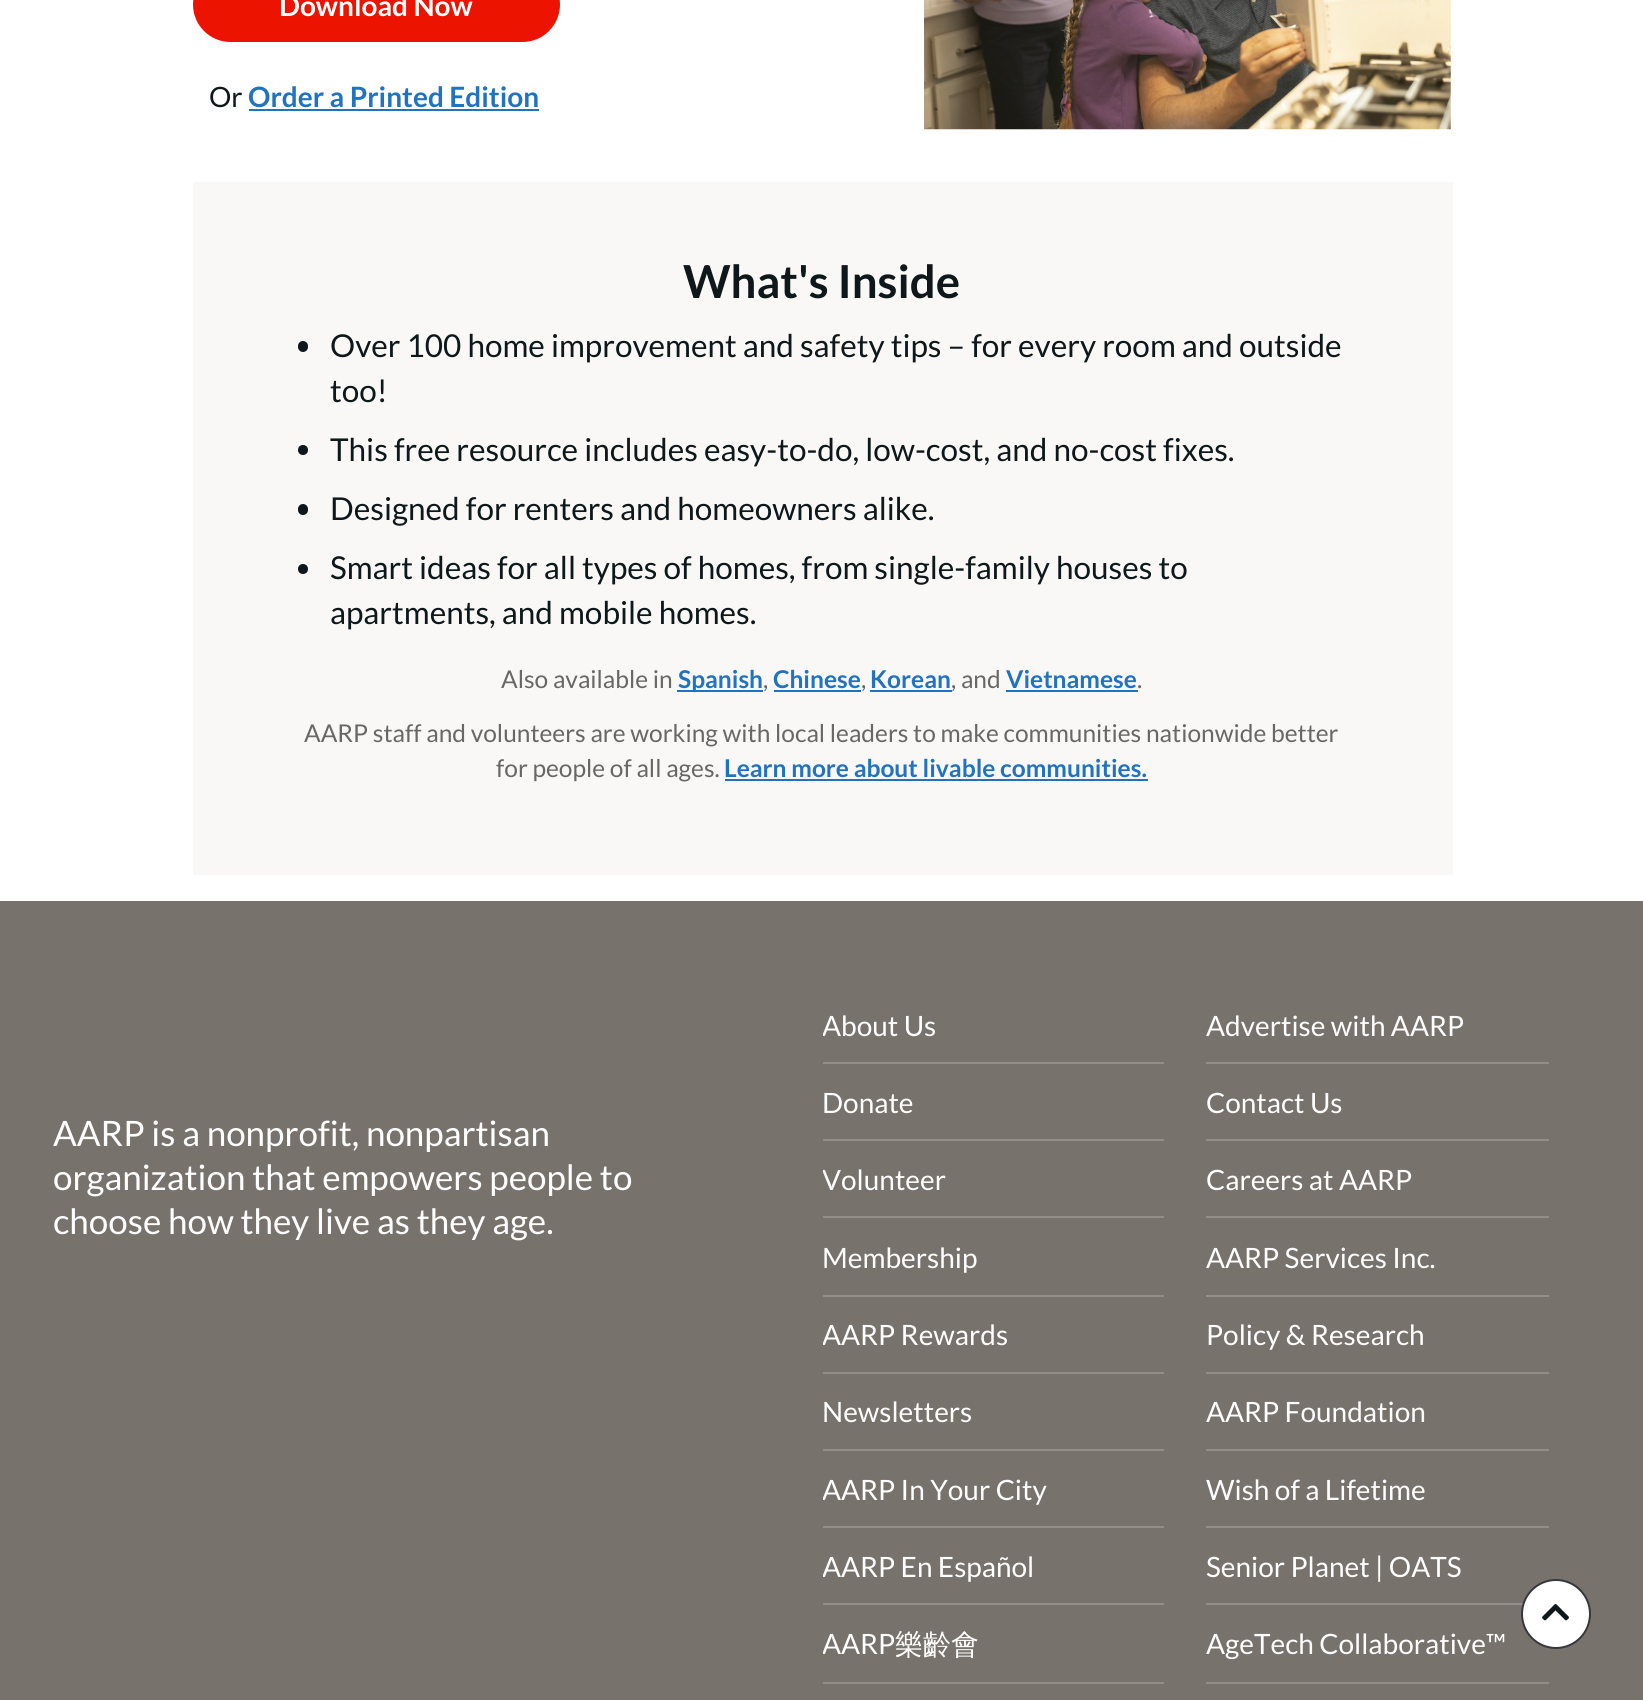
import math
import cairo

surface = cairo.ImageSurface(cairo.FORMAT_RGB24, 1643, 1700)
c = cairo.Context(surface)
options = cairo.FontOptions()
options.set_hint_metrics(cairo.HINT_METRICS_OFF)
options.set_hint_style(cairo.HINT_STYLE_NONE)
c.set_font_options(options)
c.set_miter_limit(4)
def C(code):
 c.set_source_rgb(*(v / 255 for v in bytes.fromhex(code[-6:])))
def F(family, size, italic, bold):
 c.select_font_face(family, cairo.FONT_SLANT_ITALIC if italic else cairo.FONT_SLANT_NORMAL, cairo.FONT_WEIGHT_BOLD if bold else cairo.FONT_WEIGHT_NORMAL)
 c.set_font_size(size)
def T(x, y, s):
 c.move_to(x, y)
 c.show_text(s)
def R(x, y, w, h):
 c.rectangle(x, y, w, h)
 c.fill()
def Q(x, y, w, h, r):
 c.new_sub_path()
 for i, (u, v) in enumerate([(x + w - r, y + h - r), (x + r, y + h - r), (x + r, y + r), (x + w - r, y + r)]):
  c.arc(u, v, r, i * math.pi / 2, (i + 1) * math.pi / 2)
 c.close_path()
def I(path, x, y, w, h):
 c.save()
 c.set_source_surface(cairo.ImageSurface.create_from_png(path), x, y)
 c.rectangle(x, y, w, h)
 c.fill()
 c.restore()
C('ffffff')
c.paint()
C('ec1300')
Q(193,-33,367,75,37.5)
c.fill()
F('Lato',28,0,1)
C('ffffff')
T(279,16,'Download Now')
F('Lato',28,0,0)
C('0e1719')
T(209,107,'Or')
F('Lato',28,0,1)
C('2172bf')
T(248,107,'Order a Printed Edition')
R(249,109,290,2)
I('1.png',924,0,527,130)
C('f9f8f6')
R(193,182,1260,693)
F('Lato',45.5,0,1)
C('0e1719')
T(683,298,'What\'s Inside')
Q(298,341,10,11,5)
c.fill()
F('Lato',31.5,0,0)
T(330,357,'Over 100 home improvement and safety tips – for every room and outside')
T(330,402,'too!')
c.new_path()
c.arc(303,450,5,0,2 * math.pi)
c.fill()
T(330,461,'This free resource includes easy-to-do, low-cost, and no-cost fixes.')
Q(298,504,10,11,5)
c.fill()
T(330,520,'Designed for renters and homeowners alike.')
c.new_path()
c.arc(303,569,5,0,2 * math.pi)
c.fill()
T(330,579,'Smart ideas for all types of homes, from single-family houses to')
T(330,624,'apartments, and mobile homes.')
F('Lato',24.5,0,0)
C('676767')
T(501,688,'Also available in')
C('2172bf')
R(677,690,86,2)
F('Lato',24.5,0,1)
T(678,688,'Spanish')
F('Lato',24.5,0,0)
C('676767')
T(763,688,',')
F('Lato',24.5,0,1)
C('2172bf')
T(773,688,'Chinese')
R(774,690,87,2)
F('Lato',24.5,0,0)
C('676767')
T(861,688,',')
F('Lato',24.5,0,1)
C('2172bf')
T(870,688,'Korean')
R(870,690,82,2)
F('Lato',24.5,0,0)
C('676767')
T(951,688,', and')
F('Lato',24.5,0,1)
C('2172bf')
T(1006,688,'Vietnamese')
R(1006,690,132,2)
F('Lato',24.5,0,0)
C('676767')
T(1137,688,'.')
T(304,742,'AARP staff and volunteers are working with local leaders to make communities nationwide better')
T(496,777,'for people of all ages.')
F('Lato',24.5,0,1)
C('2172bf')
T(724,777,'Learn more about livable communities.')
R(725,779,423,2)
C('77726b')
R(0,901,1643,799)
F('Lato',35,0,0)
C('ffffff')
T(53,1146,'AARP is a nonprofit, nonpartisan')
T(53,1190,'organization that empowers people to')
T(53,1234,'choose how they live as they age.')
C('928e89')
R(823,1062,341,2)
c.save()
c.rectangle(823,987,383,77)
c.clip()
F('Lato',28,0,0)
C('ffffff')
T(822,1036,'About Us')
c.restore()
R(823,1139,341,2)
F('Lato',28,0,0)
C('ffffff')
T(822,1113,'Donate')
C('928e89')
R(823,1216,341,2)
c.save()
c.rectangle(823,1141,383,77)
c.clip()
C('ffffff')
T(822,1190,'Volunteer')
c.restore()
R(823,1295,341,2)
C('ffffff')
T(822,1268,'Membership')
C('928e89')
R(823,1372,341,2)
c.save()
c.rectangle(823,1297,383,77)
c.clip()
C('ffffff')
T(822,1345,'AARP Rewards')
c.restore()
R(1206,1062,343,2)
C('ffffff')
T(1206,1036,'Advertise with AARP')
C('928e89')
R(1206,1139,343,2)
C('ffffff')
T(1206,1113,'Contact Us')
C('928e89')
R(1206,1216,343,2)
C('ffffff')
T(1206,1190,'Careers at AARP')
C('928e89')
R(1206,1295,343,2)
C('ffffff')
T(1206,1268,'AARP Services Inc.')
C('928e89')
R(1206,1372,343,2)
C('ffffff')
T(1206,1345,'Policy & Research')
C('928e89')
R(823,1449,341,2)
C('ffffff')
T(822,1422,'Newsletters')
C('928e89')
R(823,1526,341,2)
c.save()
c.rectangle(823,1451,383,77)
c.clip()
C('ffffff')
T(822,1500,'AARP In Your City')
c.restore()
R(823,1603,341,2)
c.save()
c.rectangle(823,1528,383,77)
c.clip()
C('ffffff')
T(822,1577,'AARP En Español')
c.restore()
R(823,1682,341,2)
c.save()
c.rectangle(823,1605,383,79)
c.clip()
C('ffffff')
T(822,1654,'AARP')
c.restore()
F('WenQuanYi Zen Hei Medium',28,0,0)
C('ffffff')
T(895,1654,'樂齡會')
C('928e89')
R(1206,1449,343,2)
F('Lato',28,0,0)
C('ffffff')
T(1206,1422,'AARP Foundation')
C('928e89')
R(1206,1526,343,2)
C('ffffff')
T(1206,1500,'Wish of a Lifetime')
C('928e89')
R(1206,1603,317,2)
C('ffffff')
T(1206,1577,'Senior Planet | OATS')
C('928e89')
R(1206,1682,343,2)
C('ffffff')
T(1206,1654,'AgeTech Collaborative™')
c.new_path()
c.arc(1556,1614,34,0,2 * math.pi)
c.fill_preserve()
C('37383d')
c.stroke()
I('2.png',1542,1604,27,17)
surface.write_to_png('o.png')
